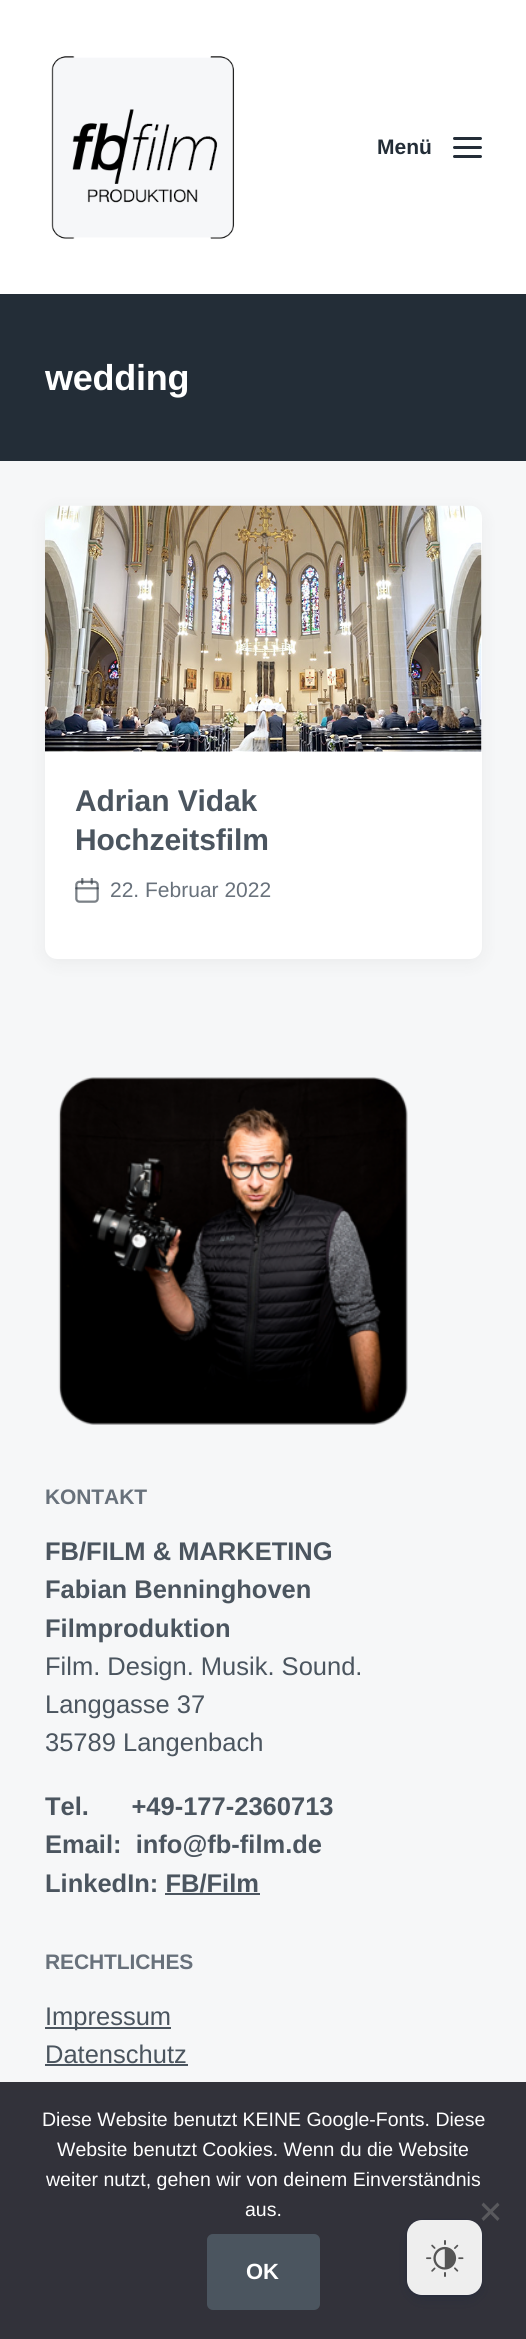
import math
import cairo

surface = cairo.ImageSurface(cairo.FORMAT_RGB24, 526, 2339)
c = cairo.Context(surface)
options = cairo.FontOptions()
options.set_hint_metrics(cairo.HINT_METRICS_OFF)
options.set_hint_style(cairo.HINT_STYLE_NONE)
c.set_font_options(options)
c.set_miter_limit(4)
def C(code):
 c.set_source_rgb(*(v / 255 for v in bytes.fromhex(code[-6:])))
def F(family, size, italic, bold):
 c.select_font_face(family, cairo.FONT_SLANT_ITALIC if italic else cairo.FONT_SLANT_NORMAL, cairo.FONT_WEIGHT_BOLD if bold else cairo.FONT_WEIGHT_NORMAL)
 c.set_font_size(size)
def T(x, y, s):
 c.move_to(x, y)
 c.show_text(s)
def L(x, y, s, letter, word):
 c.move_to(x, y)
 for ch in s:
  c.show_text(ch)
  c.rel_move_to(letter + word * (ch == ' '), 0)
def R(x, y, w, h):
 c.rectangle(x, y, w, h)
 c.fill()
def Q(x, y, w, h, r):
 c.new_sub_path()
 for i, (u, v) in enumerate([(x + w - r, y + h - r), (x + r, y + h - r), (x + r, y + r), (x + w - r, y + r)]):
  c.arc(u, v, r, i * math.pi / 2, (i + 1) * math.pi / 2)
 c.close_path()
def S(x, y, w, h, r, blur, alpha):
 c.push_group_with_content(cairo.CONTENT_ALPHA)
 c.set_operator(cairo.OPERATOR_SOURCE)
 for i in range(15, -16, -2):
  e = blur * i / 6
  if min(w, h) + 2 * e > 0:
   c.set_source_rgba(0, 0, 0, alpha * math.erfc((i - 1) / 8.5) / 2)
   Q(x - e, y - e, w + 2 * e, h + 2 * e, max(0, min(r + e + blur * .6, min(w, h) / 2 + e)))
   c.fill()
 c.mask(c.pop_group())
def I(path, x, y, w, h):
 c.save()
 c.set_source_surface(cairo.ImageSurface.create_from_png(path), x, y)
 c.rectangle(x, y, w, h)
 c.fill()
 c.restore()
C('f6f7f8')
c.paint()
C('ffffff')
R(0,0,526,294)
I('1.png',51,56,184,183)
F('Liberation Sans',21,0,1)
C('232d37')
T(377,154,'Menü')
Q(453,137,29,3,1.5)
c.fill()
Q(453,146,29,3,1.5)
c.fill()
Q(453,155,29,3,1.5)
c.fill()
R(0,294,526,167)
F('Liberation Sans',36,0,1)
C('ffffff')
L(45,390,'wedding',-.25,0)
C('050a0f')
S(45,510,437,453,12,9,.05)
C('ffffff')
Q(45,506,437,453,12)
c.fill()
I('2.png',45,505,437,247)
F('Liberation Sans',30,0,1)
C('4b555f')
L(75,811,'Adrian Vidak',-.1,0)
L(75,850,'Hochzeitsfilm',-.1,0)
I('3.png',75,878,24,25)
F('Liberation Sans',21,0,0)
C('68717b')
T(110,897,'22. Februar 2022')
I('4.png',58,1077,350,348)
F('Liberation Sans',21,0,1)
L(45,1504,'KONTAKT',-.1,0)
F('Liberation Sans',25.5,0,1)
C('4b555f')
T(45,1560,'FB/FILM & MARKETING')
T(45,1598,'Fabian Benninghoven')
T(45,1637,'Filmproduktion')
F('Liberation Sans',25.5,0,0)
T(45,1675,'Film. Design. Musik. Sound.')
T(45,1713,'Langgasse 37')
T(45,1751,'35789 Langenbach')
F('Liberation Sans',25.5,0,1)
T(45,1815,'Tel.      +49-177-2360713')
T(45,1853,'Email:  info@fb-film.de')
T(45,1892,'LinkedIn: FB/Film')
R(165,1893,95,2)
F('Liberation Sans',21,0,1)
C('68717b')
L(45,1969,'RECHTLICHES',-.1,0)
C('4b555f')
R(45,2027,126,2)
F('Liberation Sans',25.5,0,0)
T(45,2025,'Impressum')
T(45,2063,'Datenschutz')
R(45,2064,143,2)
C('32323a')
R(0,2082,526,257)
F('Liberation Sans',19.5,0,0)
C('ffffff')
T(42,2126,'Diese Website benutzt KEINE Google-Fonts. Diese')
T(57,2156,'Website benutzt Cookies. Wenn du die Website')
T(46,2186,'weiter nutzt, gehen wir von deinem Einverständnis')
T(245,2216,'aus.')
C('59595d')
c.new_path()
c.move_to(497.5,2202.5)
c.line_to(499.5,2205)
c.line_to(483.5,2221)
c.line_to(481.5,2218.5)
c.close_path()
c.fill()
c.new_path()
c.move_to(481.5,2205)
c.line_to(483.5,2202.5)
c.line_to(499.5,2218.5)
c.line_to(497.5,2221)
c.close_path()
c.fill()
C('4b555f')
Q(207,2234,113,76,6)
c.fill()
F('Liberation Sans',22,0,1)
C('ffffff')
T(246,2279,'OK')
Q(406,2220,76,76,16)
C('2f303b')
c.stroke()
C('091e42')
S(410,2229,69,69,12,6,.25)
C('eeeeee')
Q(407,2220,75,75,15)
c.fill()
I('5.png',426,2240,38,37)
surface.write_to_png('o.png')
